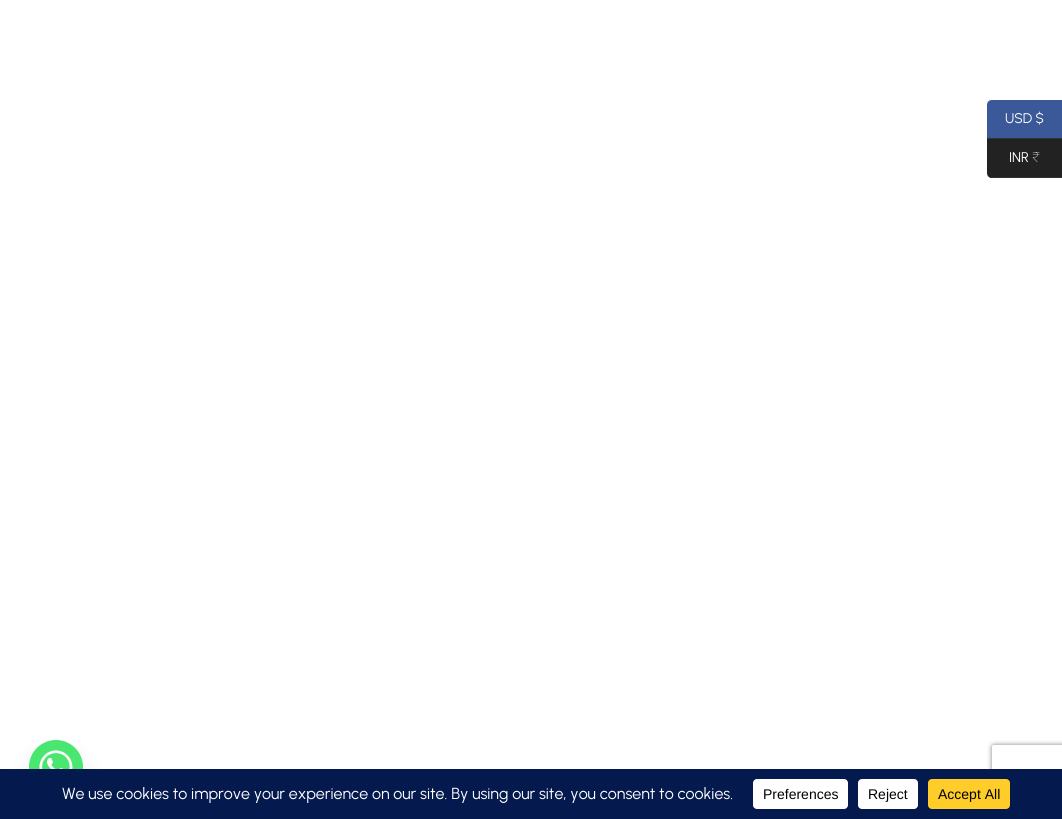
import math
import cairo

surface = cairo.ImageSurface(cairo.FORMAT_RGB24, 1062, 819)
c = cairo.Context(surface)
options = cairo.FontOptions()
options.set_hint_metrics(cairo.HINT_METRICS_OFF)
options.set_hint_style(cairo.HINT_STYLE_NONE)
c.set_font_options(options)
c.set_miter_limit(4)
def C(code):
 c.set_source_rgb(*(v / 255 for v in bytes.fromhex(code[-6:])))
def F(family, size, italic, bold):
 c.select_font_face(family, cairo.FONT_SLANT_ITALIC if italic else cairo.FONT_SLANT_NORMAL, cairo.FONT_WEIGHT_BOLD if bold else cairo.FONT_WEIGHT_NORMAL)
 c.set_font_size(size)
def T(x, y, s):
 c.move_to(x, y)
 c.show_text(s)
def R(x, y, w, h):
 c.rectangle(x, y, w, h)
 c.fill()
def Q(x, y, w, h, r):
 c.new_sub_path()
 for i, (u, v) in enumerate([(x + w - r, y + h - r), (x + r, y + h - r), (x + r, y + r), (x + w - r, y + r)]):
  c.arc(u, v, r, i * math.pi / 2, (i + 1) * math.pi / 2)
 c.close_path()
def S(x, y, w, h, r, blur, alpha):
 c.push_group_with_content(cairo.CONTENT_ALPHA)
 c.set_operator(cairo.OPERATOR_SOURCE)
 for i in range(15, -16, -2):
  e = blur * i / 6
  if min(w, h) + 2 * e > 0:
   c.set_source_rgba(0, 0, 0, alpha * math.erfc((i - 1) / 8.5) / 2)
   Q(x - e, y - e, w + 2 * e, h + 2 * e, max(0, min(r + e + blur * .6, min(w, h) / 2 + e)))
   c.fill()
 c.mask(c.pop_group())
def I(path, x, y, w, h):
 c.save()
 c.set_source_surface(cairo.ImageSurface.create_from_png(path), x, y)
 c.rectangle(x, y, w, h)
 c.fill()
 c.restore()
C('ffffff')
c.paint()
C('3b5998')
c.new_path()
c.move_to(992,100)
c.line_to(1062,100)
c.line_to(1062,139)
c.line_to(987,139)
c.line_to(987,105)
c.curve_to(987,102,989,100,992,100)
c.close_path()
c.fill()
C('333333')
R(987,138,75,1)
F('Urbanist',14,0,0)
C('ffffff')
T(1005,123,'USD $')
C('222222')
c.new_path()
c.move_to(987,139)
c.line_to(1062,139)
c.line_to(1062,178)
c.line_to(992,178)
c.curve_to(989,178,987,176,987,173)
c.close_path()
c.fill()
C('333333')
R(990,177,72,1)
C('ffffff')
T(1009,162,'INR')
F('Noto Sans Thin',14,0,0)
T(1032,162,'₹')
C('49687e')
S(29,756,54,54,27,12,.16)
I('1.png',29,740,54,29)
c.save()
c.set_fill_rule(cairo.FILL_RULE_EVEN_ODD)
c.new_path()
c.move_to(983,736)
c.line_to(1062,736)
c.line_to(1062,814)
c.line_to(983,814)
c.close_path()
c.move_to(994,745)
c.line_to(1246,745)
c.curve_to(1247,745,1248,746,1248,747)
c.line_to(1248,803)
c.curve_to(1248,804,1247,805,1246,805)
c.line_to(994,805)
c.curve_to(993,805,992,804,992,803)
c.line_to(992,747)
c.curve_to(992,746,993,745,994,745)
c.close_path()
c.clip()
C('808080')
S(992,745,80,60,2,2.5,1)
c.restore()
C('04194e')
R(0,769,1062,50)
F('Urbanist',16,0,0)
C('ffffff')
T(62,799,'We use cookies to improve your experience on our site. By using our site, you consent to cookies.')
Q(753,779,95,30,4)
c.fill()
F('Liberation Sans',14,0,0)
C('000000')
T(763,799,'Preferences')
C('ffffff')
Q(858,779,60,30,4)
c.fill()
C('000000')
T(868,799,'Reject')
C('ffcd2a')
Q(928,779,82,30,4)
c.fill()
C('000000')
T(938,799,'Accept All')
surface.write_to_png('o.png')
